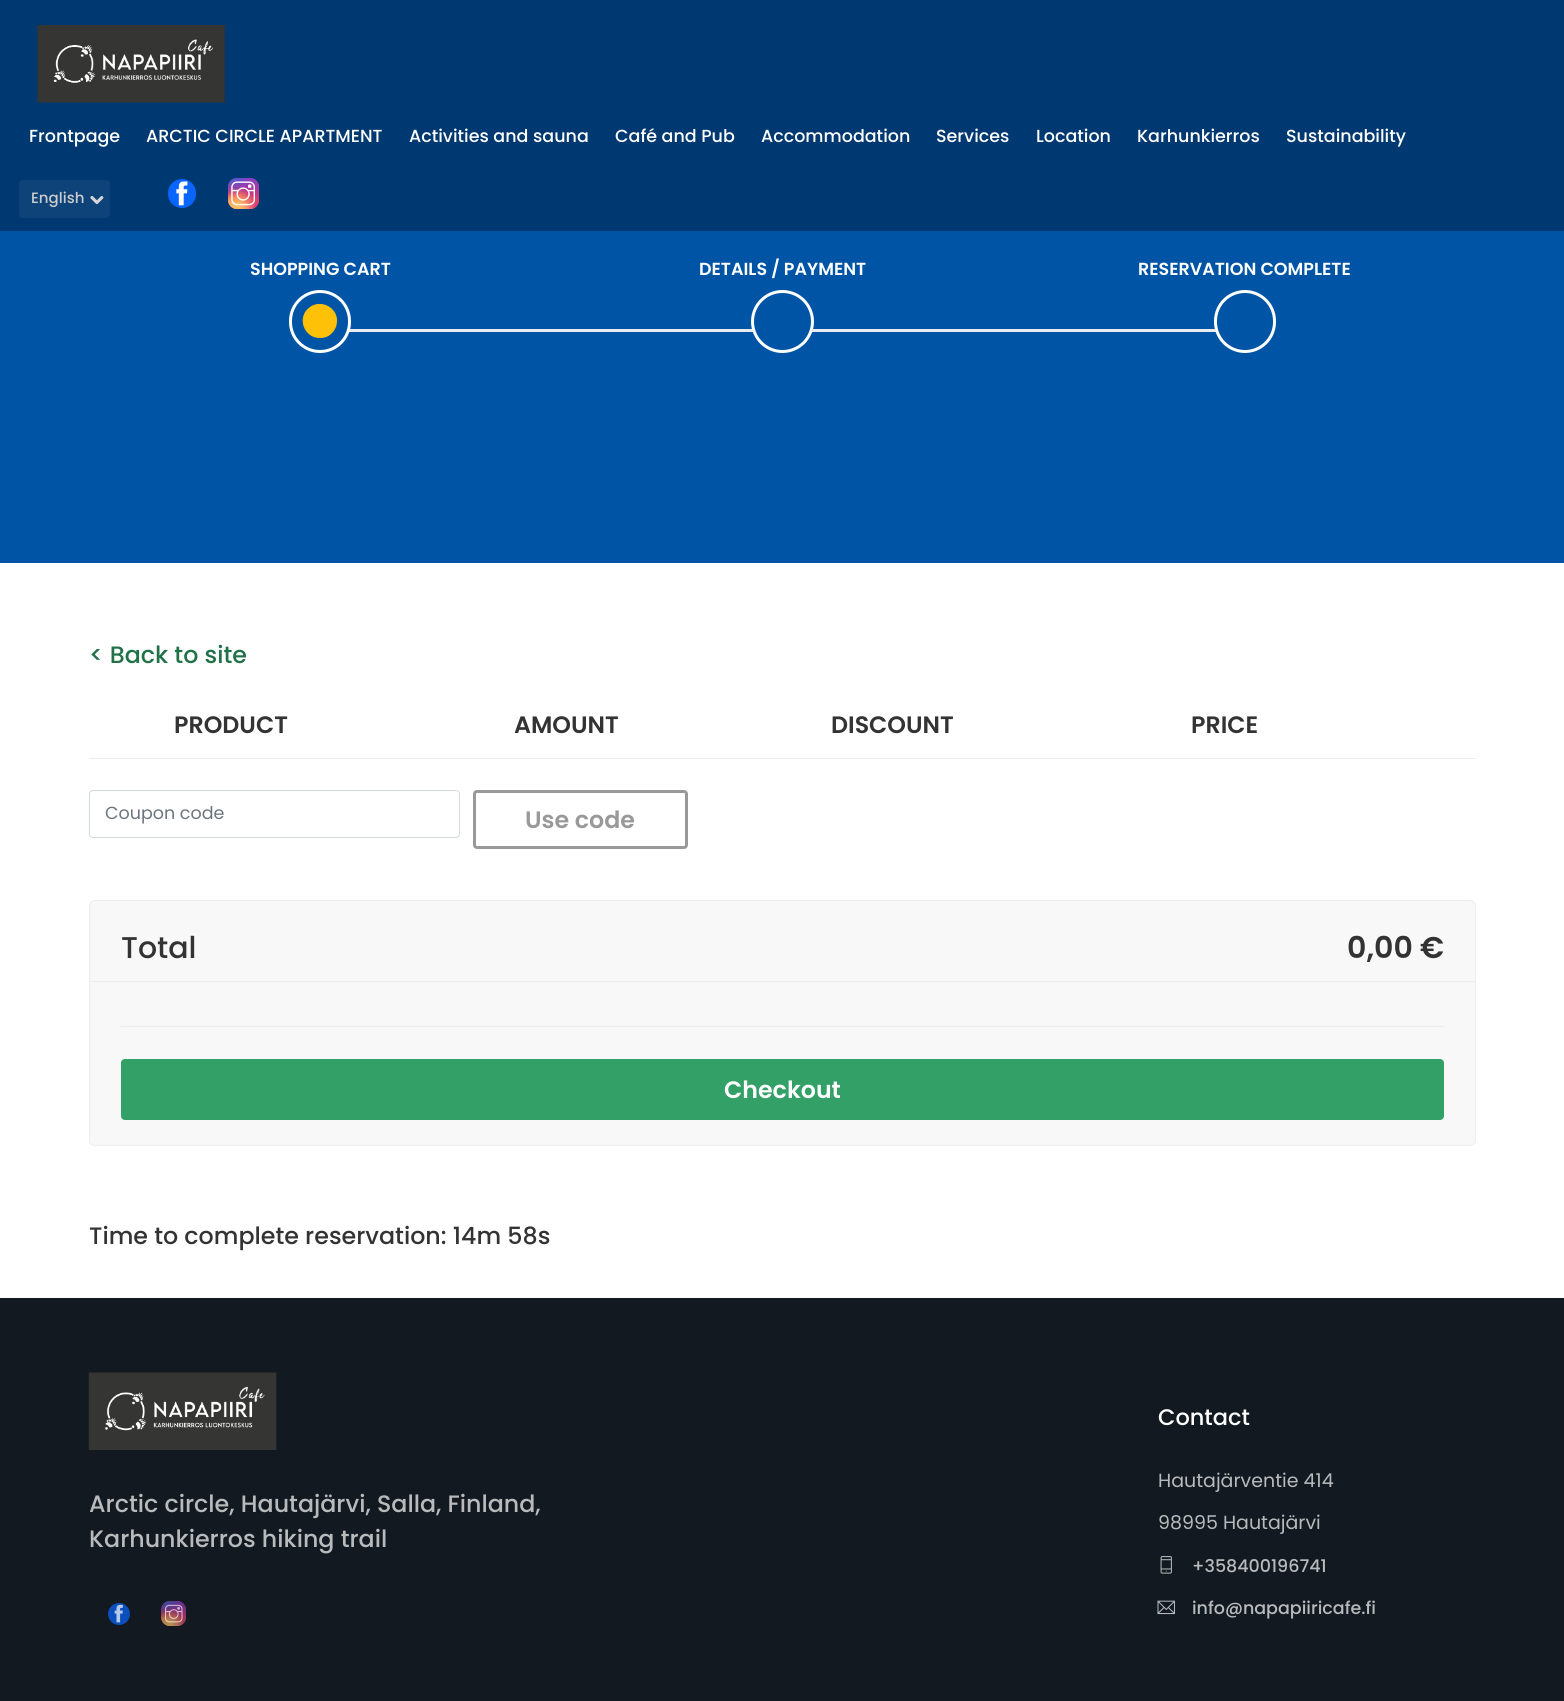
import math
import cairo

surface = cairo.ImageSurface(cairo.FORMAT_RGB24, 1564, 1701)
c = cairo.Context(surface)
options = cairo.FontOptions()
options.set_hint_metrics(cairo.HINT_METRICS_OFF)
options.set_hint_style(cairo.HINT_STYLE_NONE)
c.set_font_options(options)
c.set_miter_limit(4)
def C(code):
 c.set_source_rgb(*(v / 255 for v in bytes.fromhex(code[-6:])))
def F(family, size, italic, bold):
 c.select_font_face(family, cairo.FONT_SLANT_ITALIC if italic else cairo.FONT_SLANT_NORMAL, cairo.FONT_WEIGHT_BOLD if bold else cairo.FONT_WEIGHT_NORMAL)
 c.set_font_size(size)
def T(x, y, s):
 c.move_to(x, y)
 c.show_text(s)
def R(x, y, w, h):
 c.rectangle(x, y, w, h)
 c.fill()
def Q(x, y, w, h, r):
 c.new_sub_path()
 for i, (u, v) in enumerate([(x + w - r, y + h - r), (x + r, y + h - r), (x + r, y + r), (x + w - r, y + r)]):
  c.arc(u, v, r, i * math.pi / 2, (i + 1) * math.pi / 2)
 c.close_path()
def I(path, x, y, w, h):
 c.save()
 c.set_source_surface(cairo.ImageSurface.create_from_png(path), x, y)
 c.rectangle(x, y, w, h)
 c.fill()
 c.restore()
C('121921')
c.paint()
C('003971')
R(0,0,1564,231)
I('1.png',37,25,188,78)
F('Poppins Medium',17.5,0,0)
C('ffffff')
T(29,142,'Frontpage')
T(146,142,'ARCTIC CIRCLE APARTMENT')
T(409,142,'Activities and sauna')
T(615,142,'Café and Pub')
T(761,142,'Accommodation')
T(936,142,'Services')
T(1036,142,'Location')
T(1137,142,'Karhunkierros')
T(1286,142,'Sustainability')
C('0d4378')
Q(19,180,91,38,4)
c.fill()
I('2.png',90,196,14,8)
F('Poppins Medium',15,0,0)
C('cccccc')
T(31,203,'English')
C('0866ff')
Q(168,179,28,29,14)
c.fill()
I('3.png',176,181,12,25)
gradient = cairo.LinearGradient(243,178,243,209)
gradient.add_color_stop_rgba(0,0.396,0.349,0.792,1)
gradient.add_color_stop_rgba(.3,0.737,0.192,0.561,1)
gradient.add_color_stop_rgba(.5,0.89,0.247,0.373,1)
gradient.add_color_stop_rgba(.7,0.969,0.463,0.22,1)
gradient.add_color_stop_rgba(1,0.996,0.776,0.427,1)
c.set_source(gradient)
Q(228,178,31,31,9)
c.fill()
gradient = cairo.RadialGradient(259,209,0,259,209,44)
gradient.add_color_stop_rgba(0,0.851,0.192,0.478,1)
gradient.add_color_stop_rgba(1,0.851,0.192,0.478,0)
c.set_source(gradient)
Q(228,178,31,31,9)
c.fill()
gradient = cairo.RadialGradient(0,0,0,0,0,1)
gradient.set_matrix(cairo.Matrix(1 / 27, 0, 0, 1 / 53, -1 * 246 / 27, -1 * 171 / 53))
gradient.add_color_stop_rgba(0,0.537,0.239,0.761,1)
gradient.add_color_stop_rgba(.5,0.537,0.239,0.761,0)
c.set_source(gradient)
Q(228,178,31,31,9)
c.fill()
gradient = cairo.RadialGradient(259,178,0,259,178,44)
gradient.add_color_stop_rgba(0,0.537,0.239,0.761,1)
gradient.add_color_stop_rgba(.5,0.537,0.239,0.761,0)
c.set_source(gradient)
Q(228,178,31,31,9)
c.fill()
gradient = cairo.RadialGradient(0,0,0,0,0,1)
gradient.set_matrix(cairo.Matrix(1 / 35, 0, 0, 1 / 66, -1 * 234 / 35, -1 * 162 / 66))
gradient.add_color_stop_rgba(0,0.322,0.345,0.812,1)
gradient.add_color_stop_rgba(.5,0.322,0.345,0.812,0)
c.set_source(gradient)
Q(228,178,31,31,9)
c.fill()
gradient = cairo.RadialGradient(0,0,0,0,0,1)
gradient.set_matrix(cairo.Matrix(1 / 44, 0, 0, 1 / 55, -1 * 228 / 44, -1 * 170 / 55))
gradient.add_color_stop_rgba(0,0.322,0.345,0.812,1)
gradient.add_color_stop_rgba(.5,0.322,0.345,0.812,0)
c.set_source(gradient)
Q(228,178,31,31,9)
c.fill()
gradient = cairo.RadialGradient(228,221,0,228,221,54)
gradient.add_color_stop_rgba(0,0.996,0.773,0.392,1)
gradient.add_color_stop_rgba(.5,0.996,0.773,0.392,0)
c.set_source(gradient)
Q(228,178,31,31,9)
c.fill()
gradient = cairo.RadialGradient(238,206,0,238,206,35)
gradient.add_color_stop_rgba(0,0.996,0.773,0.392,1)
gradient.add_color_stop_rgba(.5,0.996,0.773,0.392,0)
c.set_source(gradient)
Q(228,178,31,31,9)
c.fill()
I('4.png',231,181,24,25)
C('0054a6')
R(0,231,1564,332)
F('Poppins SemiBold',17.5,0,0)
C('ffffff')
T(250,275,'SHOPPING CART')
C('e9ecef')
R(349,329,867,3)
C('0054a6')
Q(290.5,291.5,59,60,29.5)
c.fill_preserve()
C('ffffff')
c.set_line_width(3)
c.stroke()
C('ffc107')
c.new_path()
c.move_to(337,321)
c.curve_to(337,326,335,330.5,331,334)
c.curve_to(328.5,336.5,324.5,338,321,338)
c.curve_to(303.5,339,296,316.5,310,307)
c.curve_to(321,299,337.5,307.5,337,321)
c.close_path()
c.fill()
C('ffffff')
T(699,275,'DETAILS / PAYMENT')
C('0054a6')
c.new_path()
c.arc(782.5,321.5,30,0,2 * math.pi)
c.fill_preserve()
C('ffffff')
c.stroke()
T(1138,275,'RESERVATION COMPLETE')
C('0054a6')
Q(1215.5,291.5,59,60,29.5)
c.fill_preserve()
C('ffffff')
c.stroke()
R(0,563,1564,735)
F('Poppins Medium',23.75,0,0)
C('207147')
T(89,663,'< Back to site')
F('Poppins SemiBold',23.75,0,0)
C('333333')
T(174,733,'PRODUCT')
T(514,733,'AMOUNT')
T(831,733,'DISCOUNT')
T(1191,733,'PRICE')
C('ededed')
R(89,758,1387,1)
Q(89.5,790.5,370,47,3.5)
C('d2d8dd')
c.set_line_width(1)
c.stroke()
F('Poppins',17.5,0,0)
C('6c757d')
T(105,819,'Coupon code')
Q(474.5,791.5,212,56,2.5)
C('999999')
c.set_line_width(3)
c.stroke()
F('Poppins SemiBold',23.75,0,0)
T(525,828,'Use code')
C('f8f8f8')
Q(89.5,900.5,1386,245,5.5)
c.fill_preserve()
C('ededed')
c.set_line_width(1)
c.stroke()
R(90,981,1385,1)
F('Poppins Medium',30,0,0)
C('333333')
T(121,958,'Total')
F('Poppins SemiBold',30,0,0)
T(1347,958,'0,00 €')
C('ededed')
R(121,1026,1323,1)
C('32a067')
Q(121,1059,1323,61,4)
c.fill()
F('Poppins SemiBold',23.75,0,0)
C('ffffff')
T(724,1098,'Checkout')
F('Poppins Medium',23.75,0,0)
C('333333')
T(89,1244,'Time to complete reservation: 14m 58s')
I('5.png',88,1372,189,78)
C('b8babc')
T(89,1512,'Arctic circle, Hautajärvi, Salla, Finland,')
T(89,1547,'Karhunkierros hiking trail')
C('0b4fbc')
c.new_path()
c.arc(119,1614,11,0,2 * math.pi)
c.fill()
I('6.png',114,1604,9,19)
gradient = cairo.LinearGradient(174,1601,174,1626)
gradient.add_color_stop_rgba(0,0.298,0.275,0.592,1)
gradient.add_color_stop_rgba(.3,0.537,0.165,0.431,1)
gradient.add_color_stop_rgba(.5,0.643,0.204,0.298,1)
gradient.add_color_stop_rgba(.7,0.698,0.353,0.192,1)
gradient.add_color_stop_rgba(1,0.718,0.573,0.337,1)
c.set_source(gradient)
Q(161,1601,25,25,9)
c.fill()
gradient = cairo.RadialGradient(186,1626,0,186,1626,35)
gradient.add_color_stop_rgba(0,0.616,0.165,0.373,1)
gradient.add_color_stop_rgba(1,0.616,0.165,0.373,0)
c.set_source(gradient)
Q(161,1601,25,25,9)
c.fill()
gradient = cairo.RadialGradient(0,0,0,0,0,1)
gradient.set_matrix(cairo.Matrix(1 / 21, 0, 0, 1 / 42, -1 * 176 / 21, -1 * 1596 / 42))
gradient.add_color_stop_rgba(0,0.396,0.196,0.573,1)
gradient.add_color_stop_rgba(.5,0.396,0.196,0.573,0)
c.set_source(gradient)
Q(161,1601,25,25,9)
c.fill()
gradient = cairo.RadialGradient(186,1601,0,186,1601,35)
gradient.add_color_stop_rgba(0,0.396,0.196,0.573,1)
gradient.add_color_stop_rgba(.5,0.396,0.196,0.573,0)
c.set_source(gradient)
Q(161,1601,25,25,9)
c.fill()
gradient = cairo.RadialGradient(0,0,0,0,0,1)
gradient.set_matrix(cairo.Matrix(1 / 28, 0, 0, 1 / 53, -1 * 166 / 28, -1 * 1589 / 53))
gradient.add_color_stop_rgba(0,0.247,0.271,0.608,1)
gradient.add_color_stop_rgba(.5,0.247,0.271,0.608,0)
c.set_source(gradient)
Q(161,1601,25,25,9)
c.fill()
gradient = cairo.RadialGradient(0,0,0,0,0,1)
gradient.set_matrix(cairo.Matrix(1 / 35, 0, 0, 1 / 44, -1 * 161 / 35, -1 * 1595 / 44))
gradient.add_color_stop_rgba(0,0.247,0.271,0.608,1)
gradient.add_color_stop_rgba(.5,0.247,0.271,0.608,0)
c.set_source(gradient)
Q(161,1601,25,25,9)
c.fill()
gradient = cairo.RadialGradient(161,1636,0,161,1636,43)
gradient.add_color_stop_rgba(0,0.718,0.569,0.314,1)
gradient.add_color_stop_rgba(.5,0.718,0.569,0.314,0)
c.set_source(gradient)
Q(161,1601,25,25,9)
c.fill()
gradient = cairo.RadialGradient(170,1624,0,170,1624,28)
gradient.add_color_stop_rgba(0,0.718,0.569,0.314,1)
gradient.add_color_stop_rgba(.5,0.718,0.569,0.314,0)
c.set_source(gradient)
Q(161,1601,25,25,9)
c.fill()
I('7.png',165,1604,18,19)
F('Poppins Medium',22.5,0,0)
C('ffffff')
T(1158,1425,'Contact')
F('Poppins',19,0,0)
C('b8babc')
T(1158,1487,'Hautajärventie 414')
T(1158,1529,'98995 Hautajärvi')
I('8.png',1160,1556,12,18)
F('Poppins Medium',17.5,0,0)
T(1192,1572,'+358400196741')
I('9.png',1157,1600,18,15)
T(1192,1614,'info@napapiiricafe.fi')
surface.write_to_png('o.png')
